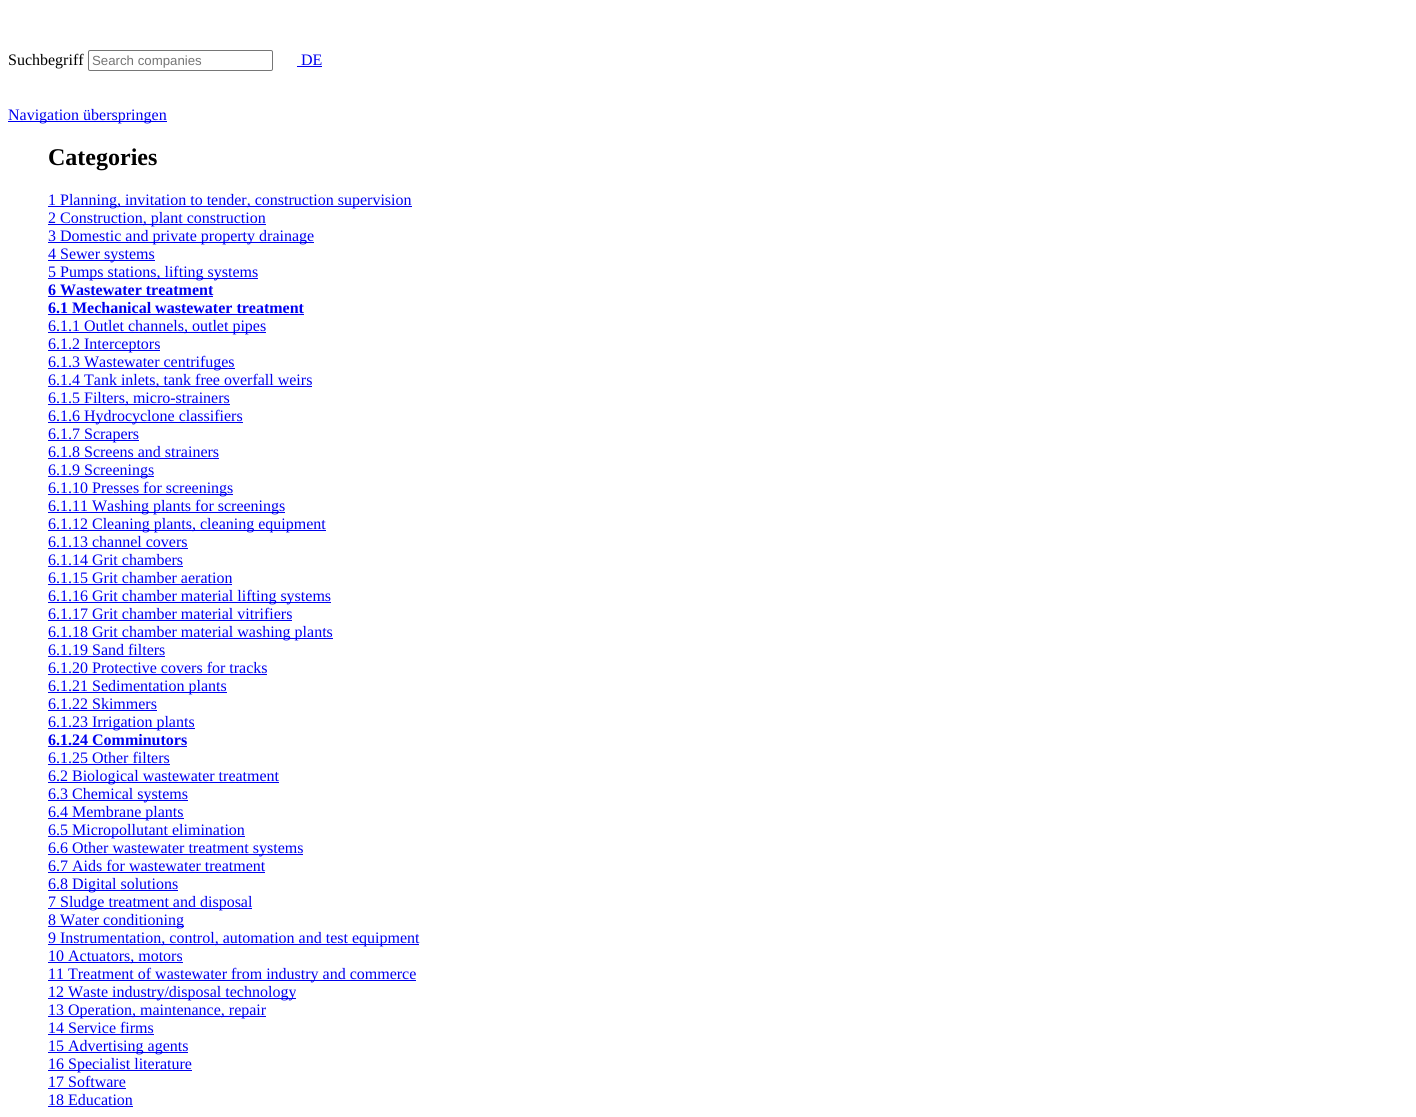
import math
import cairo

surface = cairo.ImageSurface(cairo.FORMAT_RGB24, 1416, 1117)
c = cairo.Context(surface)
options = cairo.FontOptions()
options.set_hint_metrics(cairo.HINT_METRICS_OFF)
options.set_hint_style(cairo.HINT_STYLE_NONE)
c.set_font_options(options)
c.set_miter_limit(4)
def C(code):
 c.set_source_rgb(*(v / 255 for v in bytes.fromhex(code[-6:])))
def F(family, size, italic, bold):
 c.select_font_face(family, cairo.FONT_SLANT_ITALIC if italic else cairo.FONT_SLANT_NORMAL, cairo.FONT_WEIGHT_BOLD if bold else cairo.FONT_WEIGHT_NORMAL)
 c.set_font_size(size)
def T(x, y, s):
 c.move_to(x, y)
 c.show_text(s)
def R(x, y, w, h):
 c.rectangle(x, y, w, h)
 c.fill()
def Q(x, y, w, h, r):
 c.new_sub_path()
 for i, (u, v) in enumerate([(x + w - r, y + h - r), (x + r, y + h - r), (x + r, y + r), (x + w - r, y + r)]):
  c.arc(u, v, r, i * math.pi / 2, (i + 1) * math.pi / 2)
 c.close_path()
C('ffffff')
c.paint()
F('Liberation Serif',16,0,0)
C('000000')
T(8,65,'Suchbegriff')
Q(88.5,50.5,184,20,1.5)
C('767676')
c.set_line_width(1)
c.stroke()
F('Liberation Sans',13.25,0,0)
C('757575')
T(92,65,'Search companies')
F('Liberation Serif',16,0,0)
C('0000ee')
T(301,65,'DE')
R(297,66,25,1)
R(8,121,159,1)
T(8,120,'Navigation überspringen')
F('Liberation Serif',24,0,1)
C('000000')
T(48,165,'Categories')
C('0000ee')
R(48,206,364,1)
F('Liberation Serif',16,0,0)
T(48,205,'1 Planning, invitation to tender, construction supervision')
R(48,224,218,1)
T(48,223,'2 Construction, plant construction')
R(48,242,266,1)
T(48,241,'3 Domestic and private property drainage')
R(48,260,107,1)
T(48,259,'4 Sewer systems')
R(48,278,210,1)
T(48,277,'5 Pumps stations, lifting systems')
F('Liberation Serif',16,0,1)
T(48,295,'6 Wastewater treatment')
R(48,296,165,1)
T(48,313,'6.1 Mechanical wastewater treatment')
R(48,314,256,1)
R(48,332,218,1)
F('Liberation Serif',16,0,0)
T(48,331,'6.1.1 Outlet channels, outlet pipes')
R(48,350,112,1)
T(48,349,'6.1.2 Interceptors')
R(48,368,187,1)
T(48,367,'6.1.3 Wastewater centrifuges')
R(48,386,264,1)
T(48,385,'6.1.4 Tank inlets, tank free overfall weirs')
R(48,404,182,1)
T(48,403,'6.1.5 Filters, micro-strainers')
R(48,422,195,1)
T(48,421,'6.1.6 Hydrocyclone classifiers')
R(48,440,91,1)
T(48,439,'6.1.7 Scrapers')
T(48,457,'6.1.8 Screens and strainers')
R(48,458,171,1)
R(48,476,106,1)
T(48,475,'6.1.9 Screenings')
R(48,494,185,1)
T(48,493,'6.1.10 Presses for screenings')
R(48,512,237,1)
T(48,511,'6.1.11 Washing plants for screenings')
R(48,530,278,1)
T(48,529,'6.1.12 Cleaning plants, cleaning equipment')
T(48,547,'6.1.13 channel covers')
R(48,548,140,1)
T(48,565,'6.1.14 Grit chambers')
R(48,566,135,1)
T(48,583,'6.1.15 Grit chamber aeration')
R(48,584,184,1)
R(48,602,283,1)
T(48,601,'6.1.16 Grit chamber material lifting systems')
T(48,619,'6.1.17 Grit chamber material vitrifiers')
R(48,620,244,1)
R(48,638,285,1)
T(48,637,'6.1.18 Grit chamber material washing plants')
T(48,655,'6.1.19 Sand filters')
R(48,656,117,1)
T(48,673,'6.1.20 Protective covers for tracks')
R(48,674,219,1)
R(48,692,179,1)
T(48,691,'6.1.21 Sedimentation plants')
T(48,709,'6.1.22 Skimmers')
R(48,710,109,1)
R(48,728,147,1)
T(48,727,'6.1.23 Irrigation plants')
F('Liberation Serif',16,0,1)
T(48,745,'6.1.24 Comminutors')
R(48,746,139,1)
F('Liberation Serif',16,0,0)
T(48,763,'6.1.25 Other filters')
R(48,764,122,1)
R(48,782,231,1)
T(48,781,'6.2 Biological wastewater treatment')
R(48,800,140,1)
T(48,799,'6.3 Chemical systems')
R(48,818,136,1)
T(48,817,'6.4 Membrane plants')
R(48,836,197,1)
T(48,835,'6.5 Micropollutant elimination')
R(48,854,255,1)
T(48,853,'6.6 Other wastewater treatment systems')
T(48,871,'6.7 Aids for wastewater treatment')
R(48,872,217,1)
R(48,890,130,1)
T(48,889,'6.8 Digital solutions')
R(48,908,204,1)
T(48,907,'7 Sludge treatment and disposal')
R(48,926,136,1)
T(48,925,'8 Water conditioning')
R(48,944,371,1)
T(48,943,'9 Instrumentation, control, automation and test equipment')
R(48,962,135,1)
T(48,961,'10 Actuators, motors')
R(48,980,368,1)
T(48,979,'11 Treatment of wastewater from industry and commerce')
R(48,998,248,1)
T(48,997,'12 Waste industry/disposal technology')
R(48,1016,218,1)
T(48,1015,'13 Operation, maintenance, repair')
T(48,1033,'14 Service firms')
R(48,1034,106,1)
R(48,1052,140,1)
T(48,1051,'15 Advertising agents')
R(48,1070,144,1)
T(48,1069,'16 Specialist literature')
T(48,1087,'17 Software')
R(48,1088,78,1)
T(48,1105,'18 Education')
R(48,1106,85,1)
surface.write_to_png('o.png')
